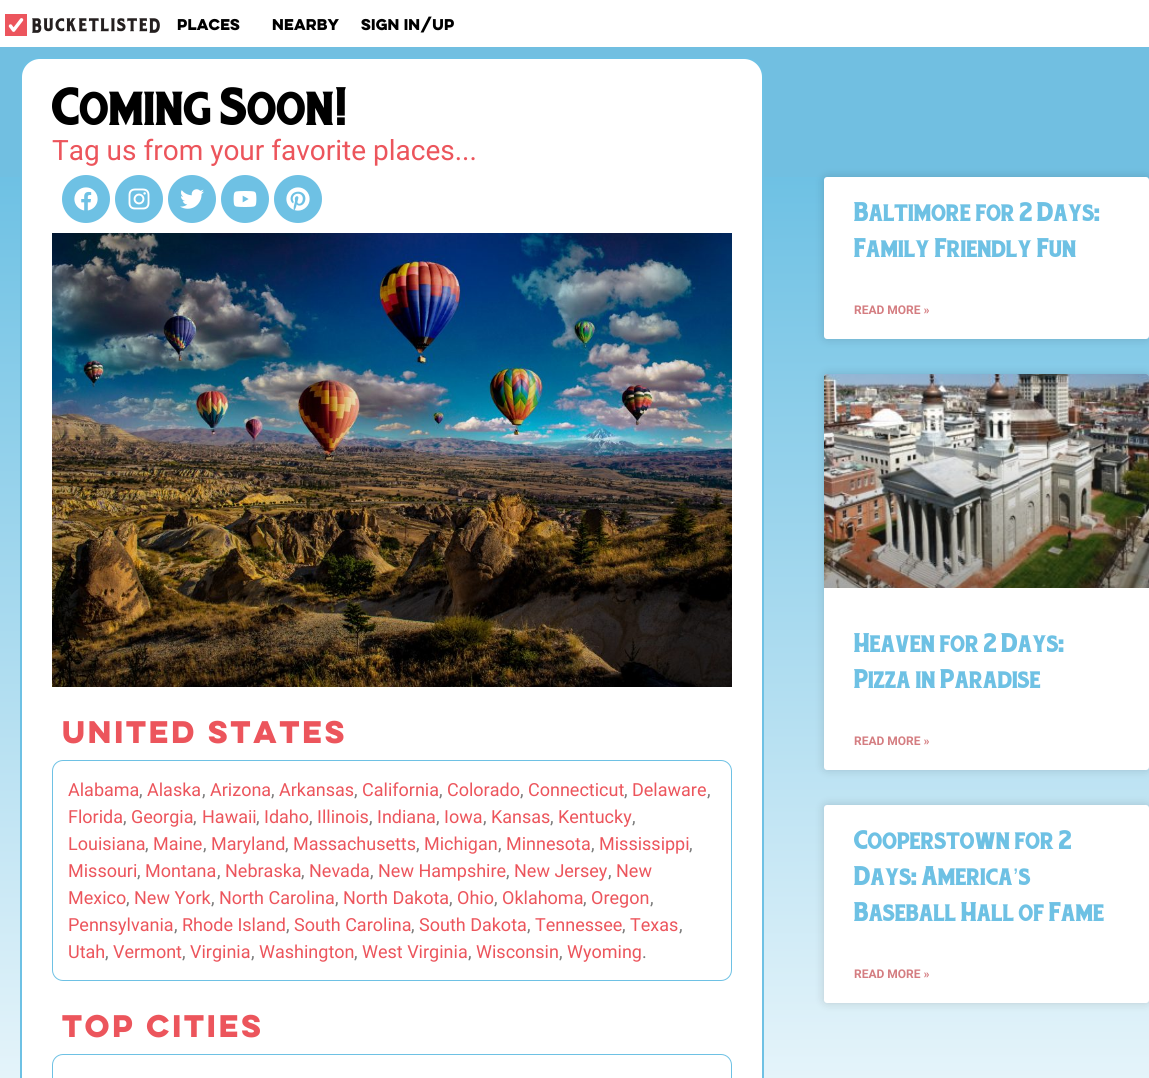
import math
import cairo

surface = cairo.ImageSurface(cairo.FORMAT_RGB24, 1149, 1078)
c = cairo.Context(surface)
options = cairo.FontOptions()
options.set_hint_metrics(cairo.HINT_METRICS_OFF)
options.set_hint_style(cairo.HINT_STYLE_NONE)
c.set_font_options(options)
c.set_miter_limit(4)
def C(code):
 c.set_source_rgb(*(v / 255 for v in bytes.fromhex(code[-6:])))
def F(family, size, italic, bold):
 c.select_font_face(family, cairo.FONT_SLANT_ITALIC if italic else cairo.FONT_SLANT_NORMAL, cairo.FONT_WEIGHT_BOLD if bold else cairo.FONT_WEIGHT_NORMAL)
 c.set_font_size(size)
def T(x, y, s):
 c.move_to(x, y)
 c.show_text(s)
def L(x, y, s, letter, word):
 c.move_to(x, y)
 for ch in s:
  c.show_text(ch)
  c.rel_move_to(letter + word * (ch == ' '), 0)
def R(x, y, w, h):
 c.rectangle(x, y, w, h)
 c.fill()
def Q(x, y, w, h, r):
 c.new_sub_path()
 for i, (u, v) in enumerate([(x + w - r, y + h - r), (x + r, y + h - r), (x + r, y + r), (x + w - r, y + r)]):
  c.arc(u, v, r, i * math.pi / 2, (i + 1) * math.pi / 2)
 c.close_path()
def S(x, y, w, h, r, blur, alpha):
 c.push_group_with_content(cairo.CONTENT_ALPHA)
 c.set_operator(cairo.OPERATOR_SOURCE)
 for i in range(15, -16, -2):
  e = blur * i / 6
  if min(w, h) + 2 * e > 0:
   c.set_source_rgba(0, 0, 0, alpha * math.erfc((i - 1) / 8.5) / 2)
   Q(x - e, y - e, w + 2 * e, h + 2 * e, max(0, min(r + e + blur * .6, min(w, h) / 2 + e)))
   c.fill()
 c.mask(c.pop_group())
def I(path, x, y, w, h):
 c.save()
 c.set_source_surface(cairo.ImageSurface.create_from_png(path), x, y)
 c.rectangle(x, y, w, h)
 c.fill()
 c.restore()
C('ffffff')
c.paint()
I('1.png',5,14,22,22)
I('2.png',32,18,128,15)
F('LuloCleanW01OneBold',14,0,1)
C('000000')
L(177,30,'Places',-3,0)
L(272,30,'Nearby',-3,0)
L(361,30,'Sign In/Up',-3,0)
C('71bfe1')
R(0,47,1149,130)
gradient = cairo.LinearGradient(574,177,575,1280)
gradient.add_color_stop_rgba(0,0.431,0.757,0.894,1)
gradient.add_color_stop_rgba(1,1,1,1,1)
c.set_source(gradient)
R(0,177,1149,901)
C('ffffff')
Q(21,58,742,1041,19)
c.fill_preserve()
C('6ec1e4')
c.stroke()
F('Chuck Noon',48,0,0)
C('000000')
T(52,125,'Coming Soon!')
F('Roboto',28,0,0)
C('ec555c')
T(52,160,'Tag us from your favorite places...')
C('6ec1e4')
c.new_path()
c.arc(86,199,24,0,2 * math.pi)
c.fill()
I('3.png',74,187,24,24)
c.arc(139,199,24,0,2 * math.pi)
c.fill()
I('4.png',128,188,22,22)
c.arc(192,199,24,0,2 * math.pi)
c.fill()
I('5.png',180,189,24,20)
c.arc(245,199,24,0,2 * math.pi)
c.fill()
I('6.png',233,191,24,16)
c.arc(298,199,24,0,2 * math.pi)
c.fill()
I('7.png',286,187,24,24)
I('8.png',52,233,680,454)
F('LuloCleanW01OneBold',28,0,1)
C('ec555c')
L(62,743,'United States',-3.5,0)
Q(52.5,760.5,679,220,10.5)
C('6ec1e4')
c.set_line_width(1)
c.stroke()
F('Roboto',18,0,0)
C('ec555c')
T(68,796,'Alabama')
C('7a7a7a')
T(139,796,',')
C('ec555c')
T(147,796,'Alaska')
C('7a7a7a')
T(202,796,',')
C('ec555c')
T(210,796,'Arizona')
C('7a7a7a')
T(271,796,',')
C('ec555c')
T(279,796,'Arkansas')
C('7a7a7a')
T(354,796,',')
C('ec555c')
T(362,796,'California')
C('7a7a7a')
T(439,796,',')
C('ec555c')
T(447,796,'Colorado')
C('7a7a7a')
T(520,796,',')
C('ec555c')
T(528,796,'Connecticut')
C('7a7a7a')
T(624,796,',')
C('ec555c')
T(632,796,'Delaware')
C('7a7a7a')
T(707,796,',')
C('ec555c')
T(68,823,'Florida')
C('7a7a7a')
T(123,823,',')
C('ec555c')
T(131,823,'Georgia')
C('7a7a7a')
T(193,823,',')
C('ec555c')
T(202,823,'Hawaii')
C('7a7a7a')
T(256,823,',')
C('ec555c')
T(264,823,'Idaho')
C('7a7a7a')
T(309,823,',')
C('ec555c')
T(317,823,'Illinois')
C('7a7a7a')
T(369,823,',')
C('ec555c')
T(377,823,'Indiana')
C('7a7a7a')
T(436,823,',')
C('ec555c')
T(444,823,'Iowa')
C('7a7a7a')
T(483,823,',')
C('ec555c')
T(491,823,'Kansas')
C('7a7a7a')
T(550,823,',')
C('ec555c')
T(558,823,'Kentucky')
C('7a7a7a')
T(632,823,',')
C('ec555c')
T(68,850,'Louisiana')
C('7a7a7a')
T(145,850,',')
C('ec555c')
T(153,850,'Maine')
C('7a7a7a')
T(203,850,',')
C('ec555c')
T(211,850,'Maryland')
C('7a7a7a')
T(285,850,',')
C('ec555c')
T(293,850,'Massachusetts')
C('7a7a7a')
T(416,850,',')
C('ec555c')
T(424,850,'Michigan')
C('7a7a7a')
T(498,850,',')
C('ec555c')
T(506,850,'Minnesota')
C('7a7a7a')
T(591,850,',')
C('ec555c')
T(599,850,'Mississippi')
C('7a7a7a')
T(689,850,',')
C('ec555c')
T(68,877,'Missouri')
C('7a7a7a')
T(137,877,',')
C('ec555c')
T(145,877,'Montana')
C('7a7a7a')
T(217,877,',')
C('ec555c')
T(225,877,'Nebraska')
C('7a7a7a')
T(301,877,',')
C('ec555c')
T(309,877,'Nevada')
C('7a7a7a')
T(370,877,',')
C('ec555c')
T(378,877,'New Hampshire')
C('7a7a7a')
T(506,877,',')
C('ec555c')
T(514,877,'New Jersey')
C('7a7a7a')
T(608,877,',')
C('ec555c')
T(616,877,'New')
T(68,904,'Mexico')
C('7a7a7a')
T(126,904,',')
C('ec555c')
T(134,904,'New York')
C('7a7a7a')
T(211,904,',')
C('ec555c')
T(219,904,'North Carolina')
C('7a7a7a')
T(335,904,',')
C('ec555c')
T(343,904,'North Dakota')
C('7a7a7a')
T(449,904,',')
C('ec555c')
T(457,904,'Ohio')
C('7a7a7a')
T(494,904,',')
C('ec555c')
T(502,904,'Oklahoma')
C('7a7a7a')
T(583,904,',')
C('ec555c')
T(591,904,'Oregon')
C('7a7a7a')
T(650,904,',')
C('ec555c')
T(68,931,'Pennsylvania')
C('7a7a7a')
T(174,931,',')
C('ec555c')
T(182,931,'Rhode Island')
C('7a7a7a')
T(286,931,',')
C('ec555c')
T(294,931,'South Carolina')
C('7a7a7a')
T(411,931,',')
C('ec555c')
T(419,931,'South Dakota')
C('7a7a7a')
T(527,931,',')
C('ec555c')
T(535,931,'Tennessee')
C('7a7a7a')
T(622,931,',')
C('ec555c')
T(630,931,'Texas')
C('7a7a7a')
T(679,931,',')
C('ec555c')
T(68,958,'Utah')
C('7a7a7a')
T(105,958,',')
C('ec555c')
T(113,958,'Vermont')
C('7a7a7a')
T(182,958,',')
C('ec555c')
T(190,958,'Virginia')
C('7a7a7a')
T(251,958,',')
C('ec555c')
T(259,958,'Washington')
C('7a7a7a')
T(354,958,',')
C('ec555c')
T(362,958,'West Virginia')
C('7a7a7a')
T(468,958,',')
C('ec555c')
T(476,958,'Wisconsin')
C('7a7a7a')
T(559,958,',')
C('ec555c')
T(567,958,'Wyoming')
C('7a7a7a')
T(642,958,'.')
F('LuloCleanW01OneBold',28,0,1)
C('ec555c')
L(62,1037,'Top Cities',-3.5,0)
Q(52.5,1054.5,679,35,10.5)
C('6ec1e4')
c.stroke()
C('000000')
S(824,177,325,162,3,5,.15)
C('ffffff')
Q(824,177,325,162,3)
c.fill()
F('Chuck Noon',24,0,0)
C('6ec1e4')
T(854,221,'Baltimore for 2 Days:')
T(854,257,'Family Friendly Fun')
F('Roboto',12,0,1)
C('d47d81')
T(854,314,'READ MORE »')
C('000000')
S(824,374,325,396,3,5,.15)
C('ffffff')
Q(824,374,325,396,3)
c.fill()
I('9.png',824,374,325,214)
gradient = cairo.LinearGradient(987,588,987,374)
gradient.add_color_stop_rgba(0,0,0,0,.35)
gradient.add_color_stop_rgba(.75,0,0,0,0)
c.set_source(gradient)
R(824,437,325,151)
F('Chuck Noon',24,0,0)
C('6ec1e4')
T(854,652,'Heaven for 2 Days:')
T(854,688,'Pizza in Paradise')
F('Roboto',12,0,1)
C('d47d81')
T(854,745,'READ MORE »')
C('000000')
S(824,805,325,198,3,5,.15)
C('ffffff')
Q(824,805,325,198,3)
c.fill()
F('Chuck Noon',24,0,0)
C('6ec1e4')
T(854,849,'Cooperstown for 2')
T(854,885,'Days: America')
F('Liberation Sans',24,0,0)
T(1013,885,'’')
F('Chuck Noon',24,0,0)
T(1019,885,'s')
T(854,921,'Baseball Hall of Fame')
F('Roboto',12,0,1)
C('d47d81')
T(854,978,'READ MORE »')
surface.write_to_png('o.png')
